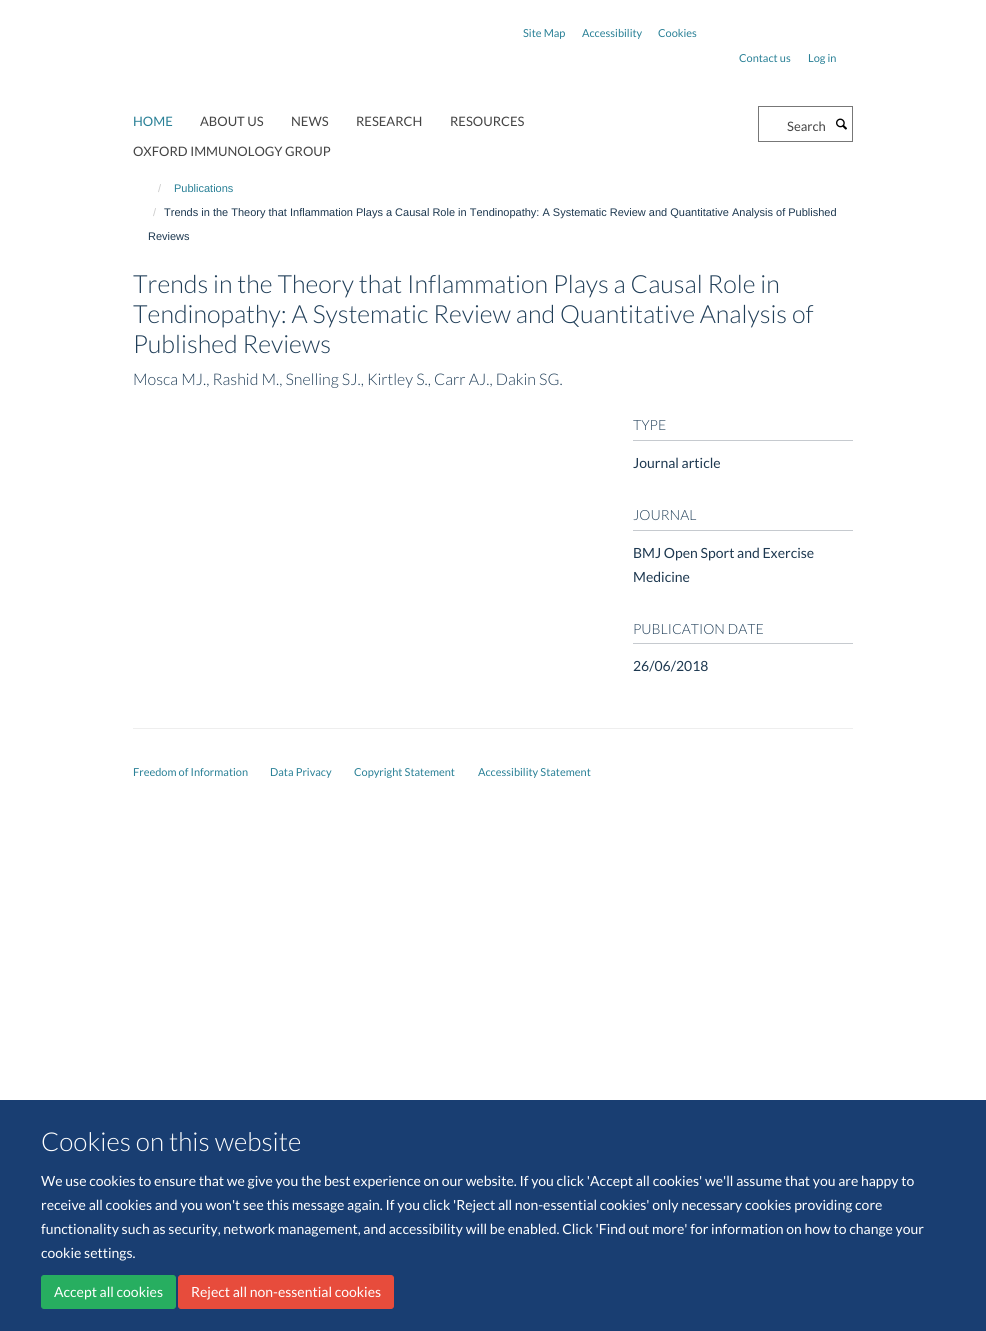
import math
import cairo

surface = cairo.ImageSurface(cairo.FORMAT_RGB24, 986, 1331)
c = cairo.Context(surface)
options = cairo.FontOptions()
options.set_hint_metrics(cairo.HINT_METRICS_OFF)
options.set_hint_style(cairo.HINT_STYLE_NONE)
c.set_font_options(options)
c.set_miter_limit(4)
def C(code):
 c.set_source_rgb(*(v / 255 for v in bytes.fromhex(code[-6:])))
def F(family, size, italic, bold):
 c.select_font_face(family, cairo.FONT_SLANT_ITALIC if italic else cairo.FONT_SLANT_NORMAL, cairo.FONT_WEIGHT_BOLD if bold else cairo.FONT_WEIGHT_NORMAL)
 c.set_font_size(size)
def T(x, y, s):
 c.move_to(x, y)
 c.show_text(s)
def R(x, y, w, h):
 c.rectangle(x, y, w, h)
 c.fill()
def Q(x, y, w, h, r):
 c.new_sub_path()
 for i, (u, v) in enumerate([(x + w - r, y + h - r), (x + r, y + h - r), (x + r, y + r), (x + w - r, y + r)]):
  c.arc(u, v, r, i * math.pi / 2, (i + 1) * math.pi / 2)
 c.close_path()
def I(path, x, y, w, h):
 c.save()
 c.set_source_surface(cairo.ImageSurface.create_from_png(path), x, y)
 c.rectangle(x, y, w, h)
 c.fill()
 c.restore()
C('ffffff')
c.paint()
F('Lato',11,0,0)
C('298096')
T(523,37,'Site Map')
T(582,37,'Accessibility')
T(658,37,'Cookies')
T(739,62,'Contact us')
T(808,62,'Log in')
F('Lato',13,0,0)
T(133,126,'HOME')
C('444444')
T(200,126,'ABOUT US')
T(291,126,'NEWS')
T(356,126,'RESEARCH')
T(450,126,'RESOURCES')
T(133,156,'OXFORD IMMUNOLOGY GROUP')
c.rectangle(758.5,106.5,94,35)
C('777777')
c.set_line_width(1)
c.stroke()
C('444444')
T(787,131,'Search')
I('1.png',836,118,11,12)
F('Liberation Sans',11,0,0)
C('cccccc')
T(158,192,'/')
C('298096')
T(174,192,'Publications')
C('cccccc')
T(153,216,'/')
C('1d3850')
T(164,216,'Trends in the Theory that Inflammation Plays a Causal Role in Tendinopathy: A Systematic Review and Quantitative Analysis of Published')
T(148,240,'Reviews')
F('Lato Light',25,0,0)
C('203e58')
T(133,293,'Trends in the Theory that Inflammation Plays a Causal Role in')
T(133,323,'Tendinopathy: A Systematic Review and Quantitative Analysis of')
T(133,353,'Published Reviews')
F('Lato Light',16,0,0)
T(133,385,'Mosca MJ., Rashid M., Snelling SJ., Kirtley S., Carr AJ., Dakin SG.')
C('c6cacf')
R(633,440,220,1)
F('Lato Light',14,0,0)
C('203e58')
T(633,430,'TYPE')
F('Lato',14,0,0)
C('1d3850')
T(633,468,'Journal article')
C('c6cacf')
R(633,530,220,1)
F('Lato Light',14,0,0)
C('203e58')
T(633,520,'JOURNAL')
F('Lato',14,0,0)
C('1d3850')
T(633,558,'BMJ Open Sport and Exercise')
T(633,582,'Medicine')
C('c6cacf')
R(633,643,220,1)
F('Lato Light',14,0,0)
C('203e58')
T(633,634,'PUBLICATION DATE')
F('Lato',14,0,0)
C('1d3850')
T(633,671,'26/06/2018')
C('eeeeee')
R(133,728,720,1)
F('Lato',11,0,0)
C('298096')
T(133,776,'Freedom of Information')
T(270,776,'Data Privacy')
T(354,776,'Copyright Statement')
T(478,776,'Accessibility Statement')
C('193e72')
R(0,1100,986,231)
F('Lato Light',26,0,0)
C('ffffff')
T(41,1151,'Cookies on this website')
F('Lato',14,0,0)
T(41,1186,'We use cookies to ensure that we give you the best experience on our website. If you click \'Accept all cookies\' we\'ll assume that you are happy to')
T(41,1210,'receive all cookies and you won\'t see this message again. If you click \'Reject all non-essential cookies\' only necessary cookies providing core')
T(41,1234,'functionality such as security, network management, and accessibility will be enabled. Click \'Find out more\' for information on how to change your')
T(41,1258,'cookie settings.')
C('27ae60')
Q(41.5,1275.5,134,33,2.5)
c.fill_preserve()
c.stroke()
C('ffffff')
T(54,1297,'Accept all cookies')
C('e74c3c')
Q(178.5,1275.5,215,33,2.5)
c.fill_preserve()
c.stroke()
C('ffffff')
T(191,1297,'Reject all non-essential cookies')
surface.write_to_png('o.png')
